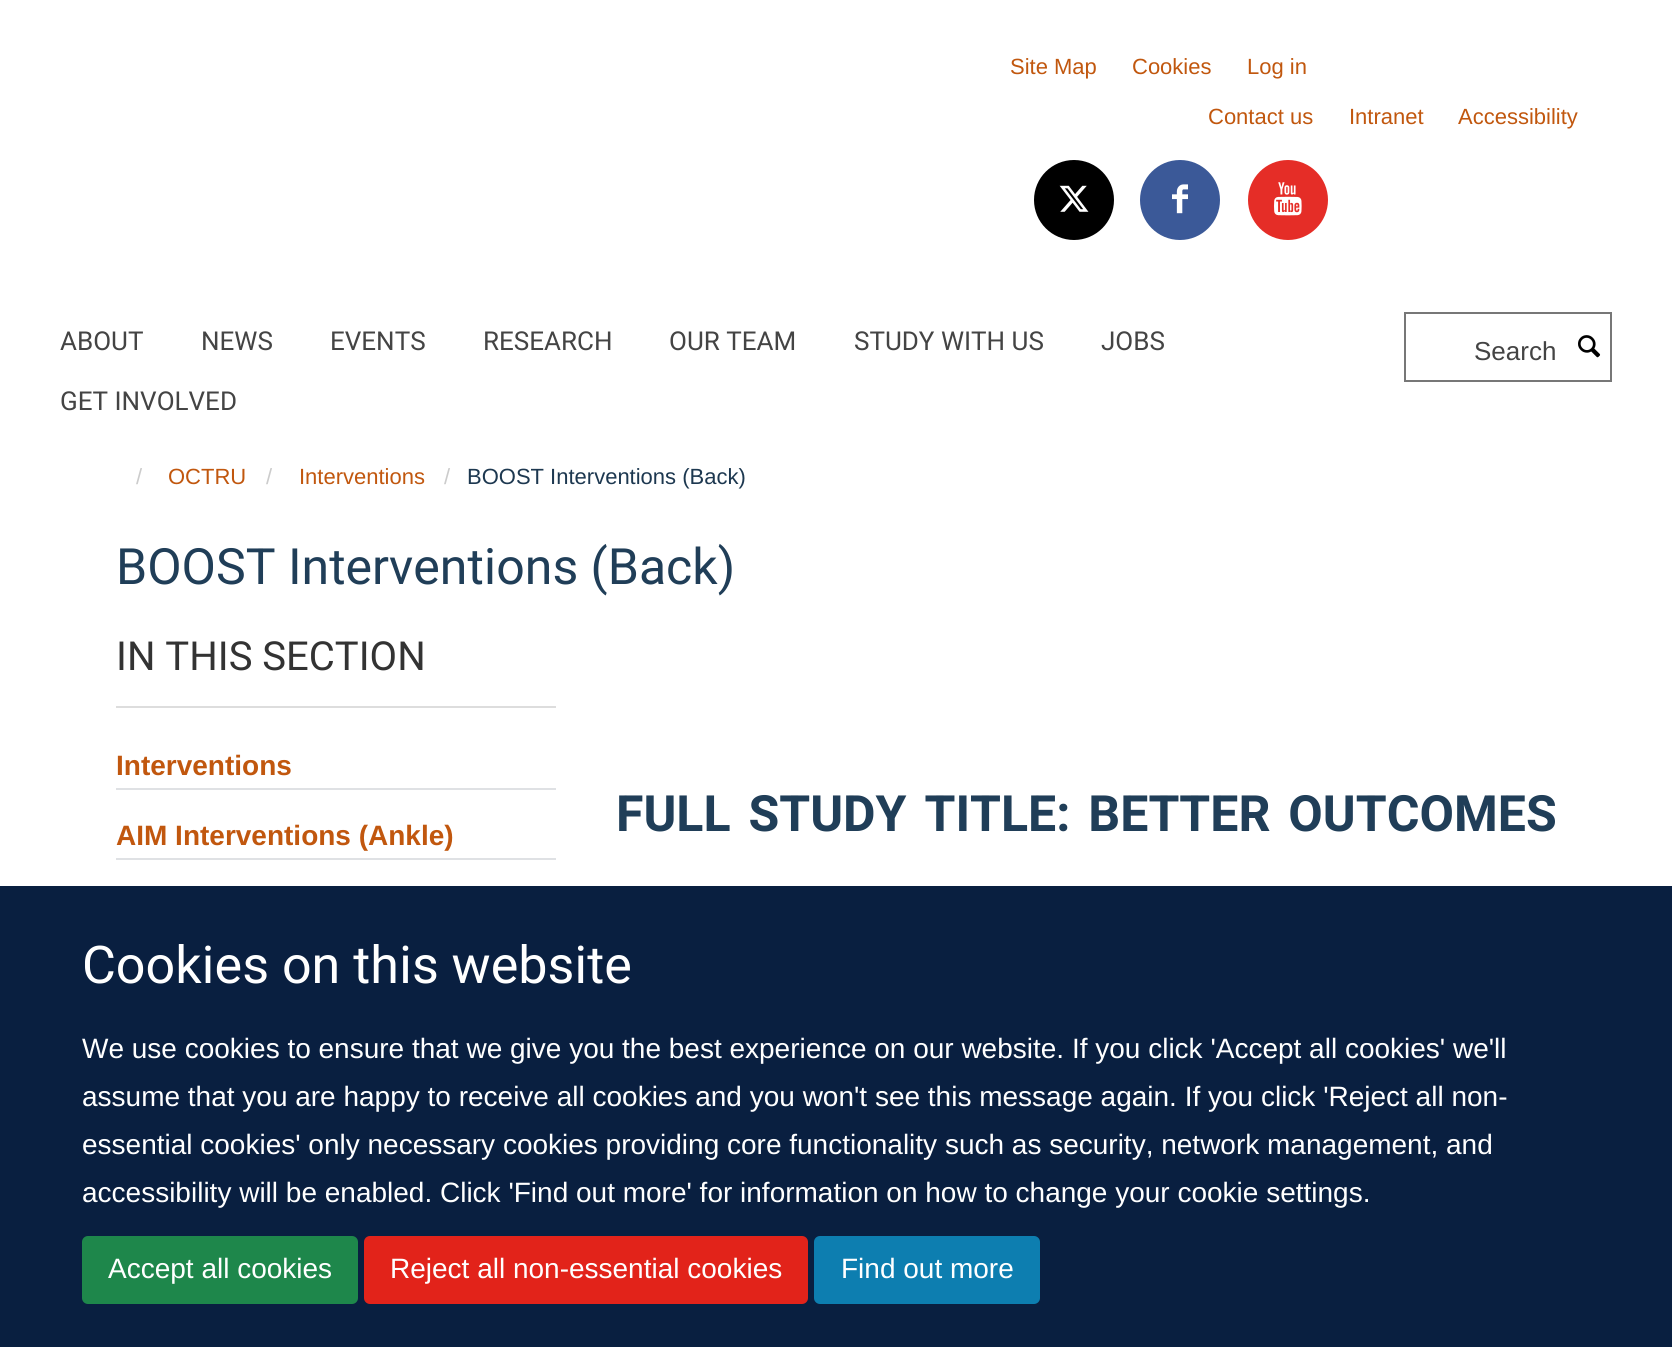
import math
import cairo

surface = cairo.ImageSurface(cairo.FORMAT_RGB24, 1672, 1347)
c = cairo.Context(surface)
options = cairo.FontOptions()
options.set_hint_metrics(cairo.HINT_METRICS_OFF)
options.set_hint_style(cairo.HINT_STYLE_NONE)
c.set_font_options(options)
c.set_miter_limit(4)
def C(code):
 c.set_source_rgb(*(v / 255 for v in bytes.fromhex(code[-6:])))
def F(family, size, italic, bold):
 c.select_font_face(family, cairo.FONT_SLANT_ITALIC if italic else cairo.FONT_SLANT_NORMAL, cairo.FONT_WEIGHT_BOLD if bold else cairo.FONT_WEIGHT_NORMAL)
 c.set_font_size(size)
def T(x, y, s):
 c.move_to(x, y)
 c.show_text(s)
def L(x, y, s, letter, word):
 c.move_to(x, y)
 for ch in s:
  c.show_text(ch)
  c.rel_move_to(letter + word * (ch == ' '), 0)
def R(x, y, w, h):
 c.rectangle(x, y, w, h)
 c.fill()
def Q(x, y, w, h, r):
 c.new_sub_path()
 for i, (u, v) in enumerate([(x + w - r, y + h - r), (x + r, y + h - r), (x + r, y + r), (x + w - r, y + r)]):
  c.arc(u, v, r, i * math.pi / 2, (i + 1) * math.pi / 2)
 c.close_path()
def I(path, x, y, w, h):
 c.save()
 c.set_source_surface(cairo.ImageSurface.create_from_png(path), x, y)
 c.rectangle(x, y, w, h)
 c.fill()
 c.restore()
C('ffffff')
c.paint()
F('Liberation Sans',22,0,0)
C('c1570e')
T(1010,74,'Site Map')
T(1132,74,'Cookies')
T(1247,74,'Log in')
T(1208,124,'Contact us')
T(1349,124,'Intranet')
T(1458,124,'Accessibility')
C('000000')
c.new_path()
c.arc(1074,200,40,0,2 * math.pi)
c.fill()
I('1.png',1059,185,30,27)
C('3b5998')
c.arc(1180,200,40,0,2 * math.pi)
c.fill()
I('2.png',1172,184,16,30)
C('e52d27')
c.arc(1288,200,40,0,2 * math.pi)
c.fill()
I('3.png',1274,182,28,34)
F('Heebo',26,0,0)
C('444444')
T(60,350,'ABOUT')
T(201,350,'NEWS')
T(330,350,'EVENTS')
T(483,350,'RESEARCH')
T(669,350,'OUR TEAM')
T(854,350,'STUDY WITH US')
T(1101,350,'JOBS')
T(60,410,'GET INVOLVED')
c.rectangle(1405,313,206,68)
C('777777')
c.stroke()
F('Liberation Sans',26,0,0)
C('444444')
T(1474,360,'Search')
I('4.png',1578,335,23,23)
F('Liberation Sans',22,0,0)
C('cccccc')
T(136,484,'/')
C('c1570e')
T(168,484,'OCTRU')
C('cccccc')
T(266,484,'/')
C('c1570e')
T(299,484,'Interventions')
C('cccccc')
T(444,484,'/')
C('1d3850')
T(467,484,'BOOST Interventions (Back)')
F('Heebo',50,0,0)
C('203e58')
T(116,584,'BOOST Interventions (Back)')
C('dddddd')
R(116,706,440,2)
F('Heebo',40,0,0)
C('333333')
T(116,670,'IN THIS SECTION')
C('dfe1e4')
R(116,788,440,2)
F('Liberation Sans',28,0,1)
C('c1570e')
T(116,775,'Interventions')
C('dfe1e4')
R(116,858,440,2)
C('c1570e')
T(116,845,'AIM Interventions (Ankle)')
F('Heebo',50,0,1)
C('203e58')
L(616,831,'FULL STUDY TITLE: BETTER OUTCOMES',0,5.5)
C('091f40')
R(0,886,1672,461)
F('Heebo',52,0,0)
C('ffffff')
T(82,983,'Cookies on this website')
F('Liberation Sans',28,0,0)
T(82,1058,'We use cookies to ensure that we give you the best experience on our website. If you click \'Accept all cookies\' we\'ll')
T(82,1106,'assume that you are happy to receive all cookies and you won\'t see this message again. If you click \'Reject all non-')
T(82,1154,'essential cookies\' only necessary cookies providing core functionality such as security, network management, and')
T(82,1202,'accessibility will be enabled. Click \'Find out more\' for information on how to change your cookie settings.')
C('1e874b')
Q(83,1237,274,66,5)
c.fill_preserve()
c.stroke()
C('ffffff')
T(108,1278,'Accept all cookies')
C('e2231a')
Q(365,1237,442,66,5)
c.fill_preserve()
c.stroke()
C('ffffff')
T(390,1278,'Reject all non-essential cookies')
C('0d7eb0')
Q(815,1237,224,66,5)
c.fill_preserve()
c.stroke()
C('ffffff')
T(841,1278,'Find out more')
surface.write_to_png('o.png')
